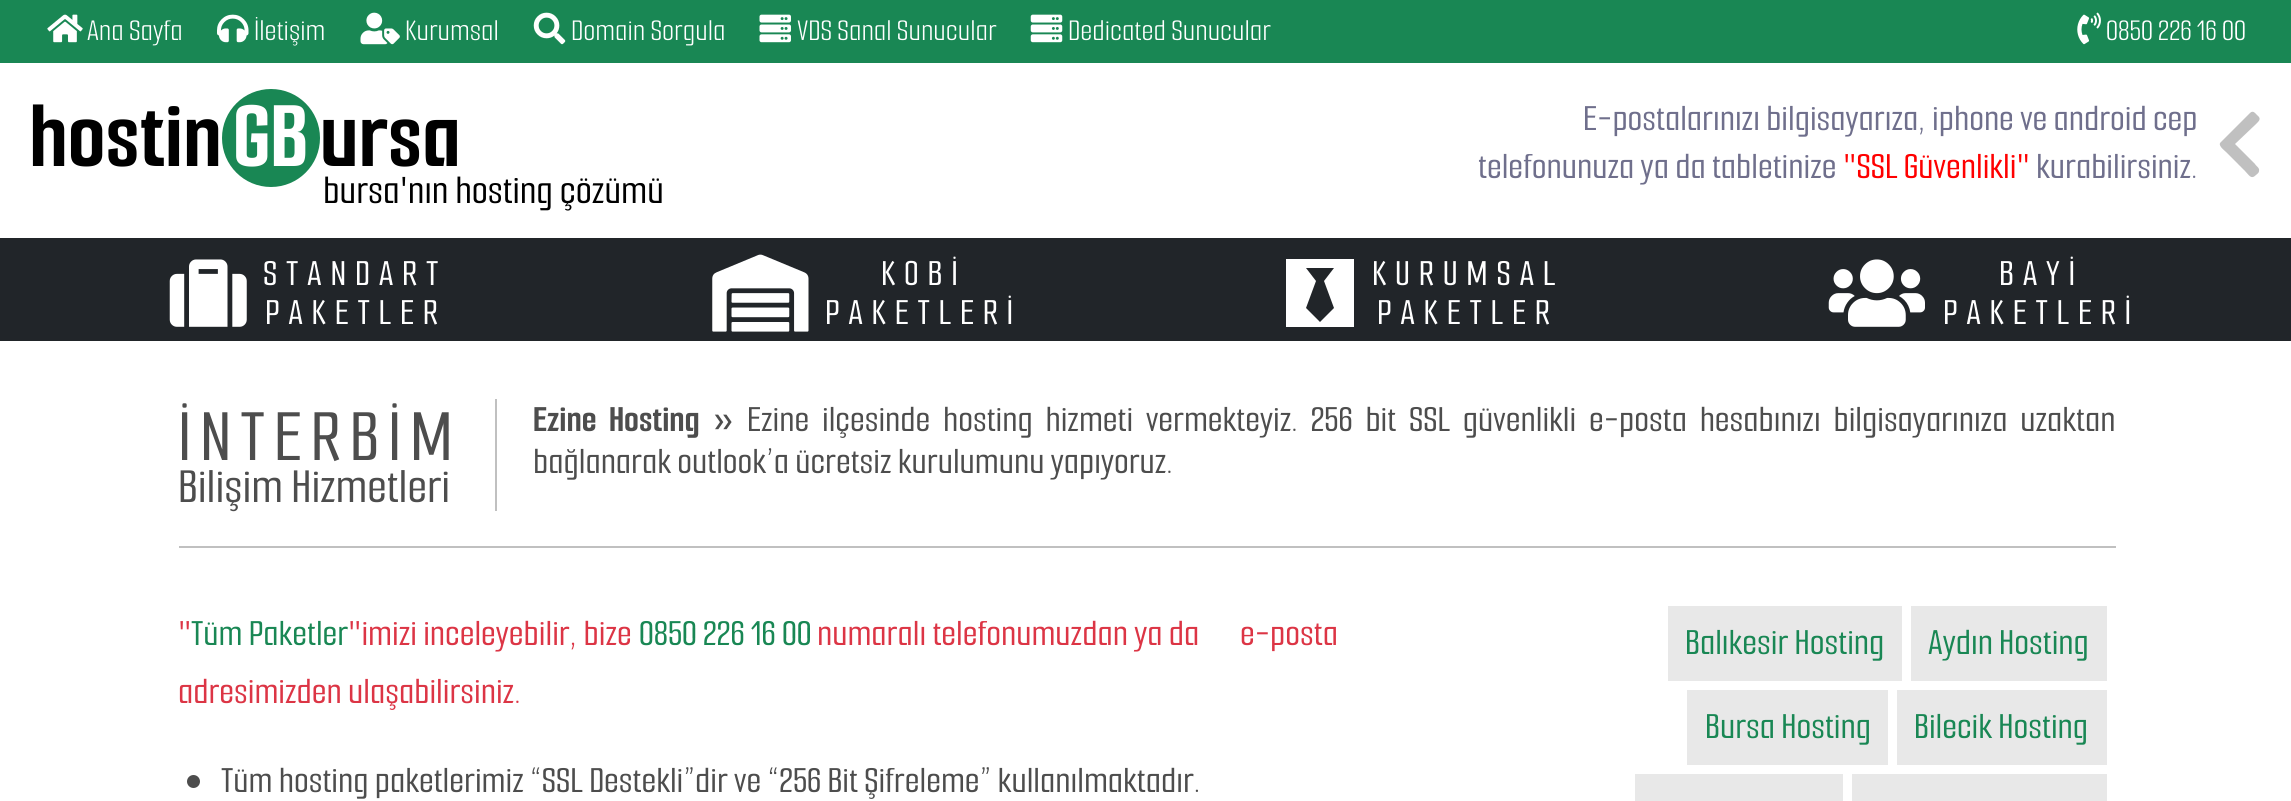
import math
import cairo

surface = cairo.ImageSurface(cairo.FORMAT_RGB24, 2291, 801)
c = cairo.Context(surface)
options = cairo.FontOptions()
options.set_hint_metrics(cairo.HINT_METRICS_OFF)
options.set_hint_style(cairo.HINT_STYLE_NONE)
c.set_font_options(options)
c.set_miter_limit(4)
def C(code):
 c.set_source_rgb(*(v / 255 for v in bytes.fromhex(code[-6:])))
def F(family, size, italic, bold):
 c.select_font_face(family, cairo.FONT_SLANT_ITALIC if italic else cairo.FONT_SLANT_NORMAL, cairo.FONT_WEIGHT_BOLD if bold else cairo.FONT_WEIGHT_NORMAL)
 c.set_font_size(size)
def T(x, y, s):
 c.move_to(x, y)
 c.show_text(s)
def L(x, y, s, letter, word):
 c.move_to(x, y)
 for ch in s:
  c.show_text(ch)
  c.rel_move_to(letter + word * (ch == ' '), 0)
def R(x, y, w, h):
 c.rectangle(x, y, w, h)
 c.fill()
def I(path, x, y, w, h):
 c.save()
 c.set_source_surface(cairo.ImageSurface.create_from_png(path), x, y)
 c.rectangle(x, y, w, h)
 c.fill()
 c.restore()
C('ffffff')
c.paint()
C('198754')
R(0,0,2291,63)
I('1.png',47,14,36,29)
F('Smooch Sans',31.5,0,0)
C('ffffff')
T(87,40,'Ana Sayfa')
I('2.png',217,14,32,29)
T(254,40,'İletişim')
I('3.png',360,12,40,33)
T(405,40,'Kurumsal')
I('4.png',533,12,33,33)
T(571,40,'Domain Sorgula')
I('5.png',759,14,32,29)
T(797,40,'VDS Sanal Sunucular')
I('6.png',1030,14,33,29)
T(1068,40,'Dedicated Sunucular')
I('7.png',2077,12,24,33)
T(2106,40,'0850 226 16 00')
F('Smooch Sans',98,0,1)
C('000000')
T(29,166,'hostin')
C('198754')
c.new_path()
c.arc(271,138,49,0,2 * math.pi)
c.fill()
C('ffffff')
T(233,166,'GB')
C('000000')
T(320,166,'ursa')
F('Smooch Sans Medium',42,0,0)
T(323,203,'bursa\'nın hosting çözümü')
F('Smooch Sans Medium',38.5,0,0)
C('6f6f8c')
T(1583,130,'E-postalarınızı bilgisayarıza, iphone ve android cep')
T(1478,178,'telefonunuza ya da tabletinize')
C('ff0000')
T(1843,178,'"SSL Güvenlikli"')
C('6f6f8c')
T(2036,178,'kurabilirsiniz.')
C('c0c0c0')
c.new_path()
c.move_to(2221,142)
c.line_to(2250,113)
c.curve_to(2253,110,2255,113,2257,115)
c.curve_to(2262,119,2259,121,2255,125)
c.line_to(2235,144)
c.line_to(2255,164)
c.curve_to(2256,166,2260,168,2259,171)
c.curve_to(2259,173,2257,174,2256,175)
c.curve_to(2251,180,2249,175,2245,171)
c.line_to(2226,152)
c.curve_to(2224,150,2217,145,2221,142)
c.close_path()
c.fill()
C('212529')
R(0,238,2291,103)
I('8.png',169,259,78,68)
C('ffffff')
L(263,285,'STANDART',8.75,0)
L(265,324,'PAKETLER',8.75,0)
I('9.png',712,254,97,78)
L(881,285,'KOBİ',8.75,0)
L(825,324,'PAKETLERİ',8.75,0)
c.new_path()
c.move_to(1286,259)
c.line_to(1354,259)
c.line_to(1354,327)
c.line_to(1286,327)
c.close_path()
c.move_to(1334,308)
c.line_to(1324,281)
c.line_to(1334,268)
c.line_to(1306,268)
c.line_to(1316,281)
c.line_to(1306,308)
c.line_to(1320,322)
c.close_path()
c.fill()
L(1372,285,'KURUMSAL',8.75,0)
L(1377,324,'PAKETLER',8.75,0)
I('10.png',1828,259,97,68)
L(1999,285,'BAYİ',8.75,0)
L(1943,324,'PAKETLERİ',8.75,0)
C('c0c0c0')
R(179,546,1937,2)
R(495,399,2,112)
F('Smooch Sans Medium',77,0,0)
C('4d4d4d')
L(178,460,'İNTERBİM',8.75,0)
F('Smooch Sans Medium',51,0,0)
T(178,502,'Bilişim Hizmetleri')
F('Smooch Sans',38.5,0,1)
L(533,431,'Ezine Hosting »',0,6.5)
F('Smooch Sans Medium',38.5,0,0)
L(747,431,'Ezine ilçesinde hosting hizmeti vermekteyiz. 256 bit SSL güvenlikli e-posta hesabınızı bilgisayarınıza uzaktan',0,6.5)
T(533,473,'bağlanarak outlook’a ücretsiz kurulumunu yapıyoruz.')
C('dc3545')
T(178,645,'"')
C('198754')
T(191,645,'Tüm Paketler')
C('dc3545')
T(348,645,'"imizi inceleyebilir, bize')
C('198754')
T(639,645,'0850 226 16 00')
C('dc3545')
T(817,645,'numaralı telefonumuzdan ya da')
T(1240,645,'e-posta')
T(178,703,'adresimizden ulaşabilirsiniz.')
C('4d4d4d')
c.new_path()
c.arc(193.5,781.5,6.5,0,2 * math.pi)
c.fill()
T(221,792,'Tüm hosting paketlerimiz “SSL Destekli”dir ve “256 Bit Şifreleme” kullanılmaktadır.')
C('e8e8e8')
R(1668,606,234,75)
C('198754')
T(1685,654,'Balıkesir Hosting')
C('e8e8e8')
R(1911,606,196,75)
C('198754')
T(1928,654,'Aydın Hosting')
C('e8e8e8')
R(1687,690,201,75)
C('198754')
T(1705,738,'Bursa Hosting')
C('e8e8e8')
R(1897,690,210,75)
C('198754')
T(1914,738,'Bilecik Hosting')
C('e8e8e8')
R(1635,774,208,27)
R(1852,774,255,27)
surface.write_to_png('o.png')
